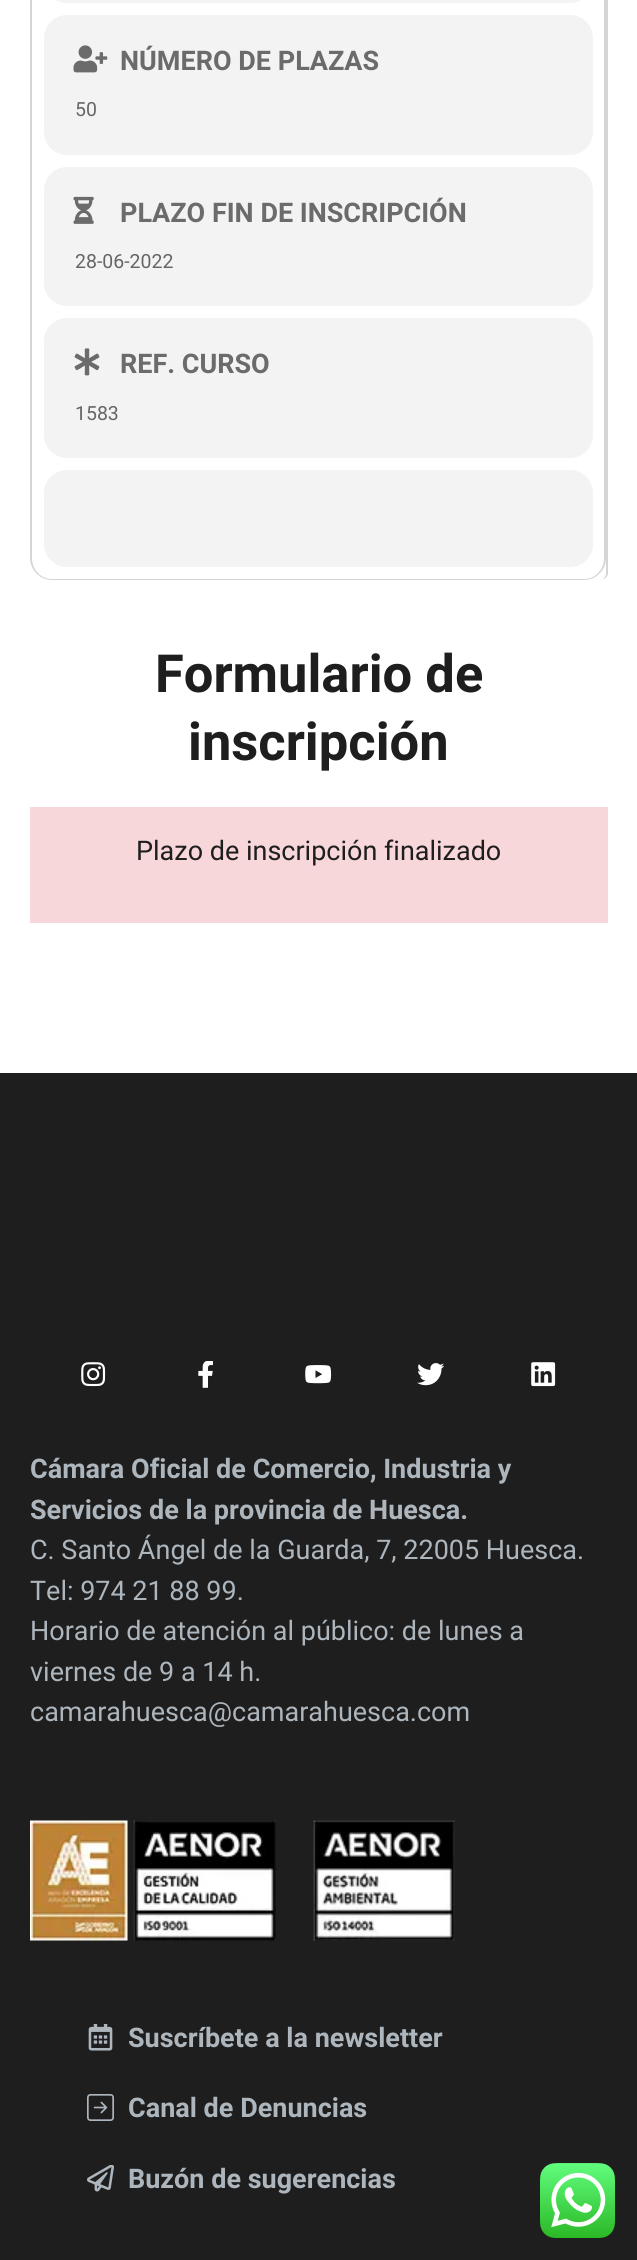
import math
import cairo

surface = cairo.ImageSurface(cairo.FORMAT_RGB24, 637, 2260)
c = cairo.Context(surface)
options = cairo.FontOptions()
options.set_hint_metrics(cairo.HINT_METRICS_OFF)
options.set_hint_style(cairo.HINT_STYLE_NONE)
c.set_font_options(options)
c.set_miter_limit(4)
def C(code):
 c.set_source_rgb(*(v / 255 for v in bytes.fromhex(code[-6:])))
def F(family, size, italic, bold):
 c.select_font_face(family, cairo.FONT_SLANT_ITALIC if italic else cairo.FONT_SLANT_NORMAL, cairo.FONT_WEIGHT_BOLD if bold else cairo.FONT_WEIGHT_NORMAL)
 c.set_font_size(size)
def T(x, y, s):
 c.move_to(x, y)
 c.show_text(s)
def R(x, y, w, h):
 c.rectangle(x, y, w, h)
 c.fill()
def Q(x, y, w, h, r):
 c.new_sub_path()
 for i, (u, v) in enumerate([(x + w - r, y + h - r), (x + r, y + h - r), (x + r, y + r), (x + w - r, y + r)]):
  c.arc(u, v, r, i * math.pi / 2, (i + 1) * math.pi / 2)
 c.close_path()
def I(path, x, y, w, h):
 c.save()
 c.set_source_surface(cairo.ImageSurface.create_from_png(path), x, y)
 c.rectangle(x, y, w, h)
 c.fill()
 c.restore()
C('ffffff')
c.paint()
C('d5d5d5')
c.set_fill_rule(cairo.FILL_RULE_EVEN_ODD)
c.new_path()
c.move_to(38,-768)
c.line_to(600,-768)
c.curve_to(604,-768,608,-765,608,-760)
c.line_to(608,573)
c.curve_to(608,577,604,580,600,580)
c.line_to(38,580)
c.curve_to(33,580,30,577,30,573)
c.line_to(30,-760)
c.curve_to(30,-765,33,-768,38,-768)
c.close_path()
c.move_to(38,-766)
c.line_to(600,-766)
c.curve_to(603,-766,606,-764,606,-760)
c.line_to(606,573)
c.curve_to(606,577,603,580,600,580)
c.line_to(38,580)
c.curve_to(33,580,30,577,30,573)
c.line_to(30,-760)
c.curve_to(30,-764,33,-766,38,-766)
c.close_path()
c.fill()
c.new_path()
c.move_to(30,-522)
c.line_to(606,-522)
c.line_to(606,558)
c.curve_to(606,570,596,580,584,580)
c.line_to(52,580)
c.curve_to(40,580,30,570,30,558)
c.close_path()
c.move_to(32,-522)
c.line_to(604,-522)
c.line_to(604,558)
c.curve_to(604,570,595,579,584,579)
c.line_to(52,579)
c.curve_to(41,579,32,570,32,558)
c.close_path()
c.fill()
C('f3f3f3')
Q(44,-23,549,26,23)
c.fill()
Q(44,15,549,140,23)
c.fill()
I('1.png',73,45,35,28)
F('Roboto',27,0,1)
C('6b6b6b')
T(120,70,'NÚMERO DE PLAZAS')
F('Roboto',19.5,0,0)
C('656565')
T(75,116,'50')
C('f3f3f3')
Q(44,167,549,139,23)
c.fill()
I('2.png',73,196,21,28)
F('Roboto',27,0,1)
C('6b6b6b')
T(120,222,'PLAZO FIN DE INSCRIPCIÓN')
F('Roboto',19.5,0,0)
C('656565')
T(75,268,'28-06-2022')
C('f3f3f3')
Q(44,318,549,140,23)
c.fill()
I('3.png',74,348,26,28)
F('Roboto',27,0,1)
C('6b6b6b')
T(120,373,'REF. CURSO')
F('Roboto',19.5,0,0)
C('656565')
T(75,420,'1583')
C('f3f3f3')
Q(44,470,549,97,23)
c.fill()
F('Roboto',52.5,0,1)
C('1e1e1e')
T(155,692,'Formulario de')
T(188,760,'inscripción')
C('f8d7da')
R(30,807,578,116)
F('Roboto',27,0,0)
C('1e1e1e')
T(136,860,'Plazo de inscripción finalizado')
R(0,1073,637,1187)
I('4.png',81,1362,25,25)
I('5.png',198,1361,15,27)
I('6.png',305,1365,27,19)
I('7.png',417,1363,28,23)
I('8.png',531,1362,25,25)
F('Roboto',27,0,1)
C('adb5bd')
T(30,1478,'Cámara Oficial de Comercio, Industria y')
T(30,1519,'Servicios de la provincia de Huesca.')
F('Roboto',27,0,0)
T(30,1559,'C. Santo Ángel de la Guarda, 7, 22005 Huesca.')
T(30,1600,'Tel: 974 21 88 99.')
T(30,1640,'Horario de atención al público: de lunes a')
T(30,1681,'viernes de 9 a 14 h.')
T(30,1721,'camarahuesca@camarahuesca.com')
I('9.png',30,1820,98,121)
I('10.png',133,1820,143,121)
I('11.png',313,1820,142,121)
I('12.png',88,2024,25,27)
F('Roboto',27,0,1)
T(128,2047,'Suscríbete a la newsletter')
I('13.png',87,2094,27,27)
T(128,2117,'Canal de Denuncias')
I('14.png',87,2165,27,27)
T(128,2188,'Buzón de sugerencias')
I('15.png',540,2163,75,75)
surface.write_to_png('o.png')
